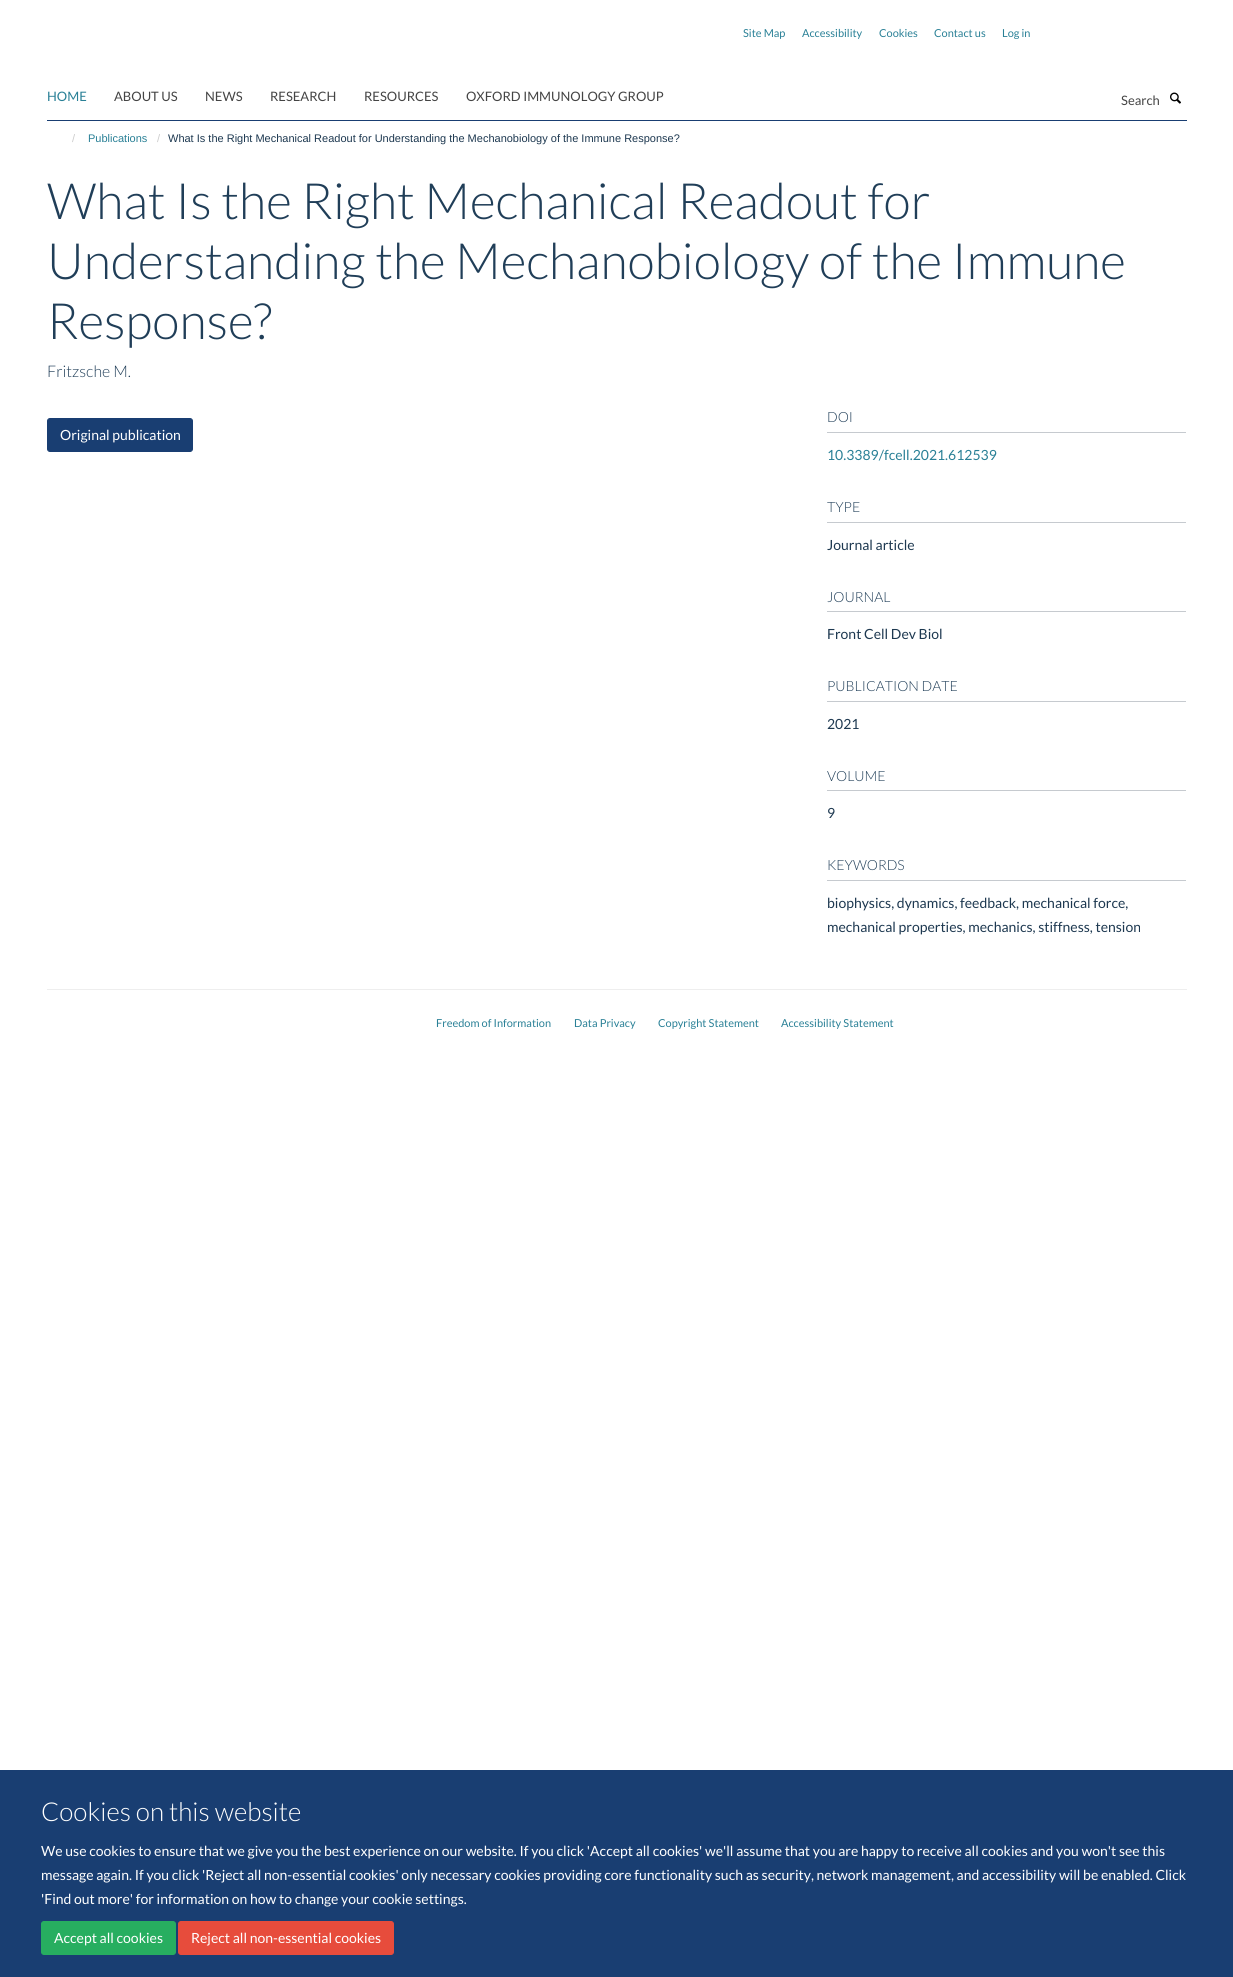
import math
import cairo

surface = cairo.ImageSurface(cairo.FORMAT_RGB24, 1233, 1977)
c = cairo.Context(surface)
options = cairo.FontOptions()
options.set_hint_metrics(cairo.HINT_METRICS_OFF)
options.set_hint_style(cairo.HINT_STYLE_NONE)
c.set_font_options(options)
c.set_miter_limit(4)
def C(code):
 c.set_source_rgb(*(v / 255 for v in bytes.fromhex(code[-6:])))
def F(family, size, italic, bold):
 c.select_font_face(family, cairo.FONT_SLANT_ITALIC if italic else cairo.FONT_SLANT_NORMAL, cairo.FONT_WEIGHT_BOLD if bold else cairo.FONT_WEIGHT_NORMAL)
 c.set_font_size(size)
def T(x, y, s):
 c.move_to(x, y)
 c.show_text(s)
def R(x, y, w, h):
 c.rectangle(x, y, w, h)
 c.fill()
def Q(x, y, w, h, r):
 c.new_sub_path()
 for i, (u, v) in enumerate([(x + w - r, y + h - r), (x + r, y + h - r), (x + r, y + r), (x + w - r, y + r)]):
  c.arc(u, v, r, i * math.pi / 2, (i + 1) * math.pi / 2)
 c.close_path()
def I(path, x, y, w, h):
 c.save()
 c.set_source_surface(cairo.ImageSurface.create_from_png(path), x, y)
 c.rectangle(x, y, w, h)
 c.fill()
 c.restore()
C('ffffff')
c.paint()
F('Lato',11,0,0)
C('298096')
T(743,37,'Site Map')
T(802,37,'Accessibility')
T(879,37,'Cookies')
T(934,37,'Contact us')
T(1002,37,'Log in')
C('193e72')
R(47,120,1140,1)
F('Lato',13,0,0)
C('298096')
T(47,101,'HOME')
C('444444')
T(114,101,'ABOUT US')
T(205,101,'NEWS')
T(270,101,'RESEARCH')
T(364,101,'RESOURCES')
T(466,101,'OXFORD IMMUNOLOGY GROUP')
T(1121,105,'Search')
I('1.png',1170,92,11,12)
F('Liberation Sans',11,0,0)
C('cccccc')
T(72,142,'/')
C('298096')
T(88,142,'Publications')
C('cccccc')
T(157,142,'/')
C('1d3850')
T(168,142,'What Is the Right Mechanical Readout for Understanding the Mechanobiology of the Immune Response?')
F('Lato Light',50,0,0)
C('203e58')
T(47,219,'What Is the Right Mechanical Readout for')
T(47,279,'Understanding the Mechanobiology of the Immune')
T(47,339,'Response?')
F('Lato Light',16,0,0)
T(47,377,'Fritzsche M.')
C('193e72')
Q(47.5,418.5,145,33,2.5)
c.fill_preserve()
c.set_line_width(1)
c.stroke()
F('Lato',14,0,0)
C('ffffff')
T(60,440,'Original publication')
C('c6cacf')
R(827,432,359,1)
F('Lato Light',14,0,0)
C('203e58')
T(827,422,'DOI')
F('Lato',14,0,0)
C('298096')
T(827,460,'10.3389/fcell.2021.612539')
C('c6cacf')
R(827,522,359,1)
F('Lato Light',14,0,0)
C('203e58')
T(827,512,'TYPE')
F('Lato',14,0,0)
C('1d3850')
T(827,550,'Journal article')
C('c6cacf')
R(827,611,359,1)
F('Lato Light',14,0,0)
C('203e58')
T(827,602,'JOURNAL')
F('Lato',14,0,0)
C('1d3850')
T(827,639,'Front Cell Dev Biol')
C('c6cacf')
R(827,701,359,1)
F('Lato Light',14,0,0)
C('203e58')
T(827,691,'PUBLICATION DATE')
F('Lato',14,0,0)
C('1d3850')
T(827,729,'2021')
C('c6cacf')
R(827,790,359,1)
F('Lato Light',14,0,0)
C('203e58')
T(827,781,'VOLUME')
F('Lato',14,0,0)
C('1d3850')
T(827,818,'9')
C('c6cacf')
R(827,880,359,1)
F('Lato Light',14,0,0)
C('203e58')
T(827,870,'KEYWORDS')
F('Lato',14,0,0)
C('1d3850')
T(827,908,'biophysics, dynamics, feedback, mechanical force,')
T(827,932,'mechanical properties, mechanics, stiffness, tension')
C('eeeeee')
R(47,989,1140,1)
F('Lato',11,0,0)
C('298096')
T(436,1027,'Freedom of Information')
T(574,1027,'Data Privacy')
T(658,1027,'Copyright Statement')
T(781,1027,'Accessibility Statement')
C('193e72')
R(0,1770,1233,207)
F('Lato Light',26,0,0)
C('ffffff')
T(41,1821,'Cookies on this website')
F('Lato',14,0,0)
T(41,1856,'We use cookies to ensure that we give you the best experience on our website. If you click \'Accept all cookies\' we\'ll assume that you are happy to receive all cookies and you won\'t see this')
T(41,1880,'message again. If you click \'Reject all non-essential cookies\' only necessary cookies providing core functionality such as security, network management, and accessibility will be enabled. Click')
T(41,1904,'\'Find out more\' for information on how to change your cookie settings.')
C('27ae60')
Q(41.5,1921.5,134,33,2.5)
c.fill_preserve()
c.stroke()
C('ffffff')
T(54,1943,'Accept all cookies')
C('e74c3c')
Q(178.5,1921.5,215,33,2.5)
c.fill_preserve()
c.stroke()
C('ffffff')
T(191,1943,'Reject all non-essential cookies')
surface.write_to_png('o.png')
